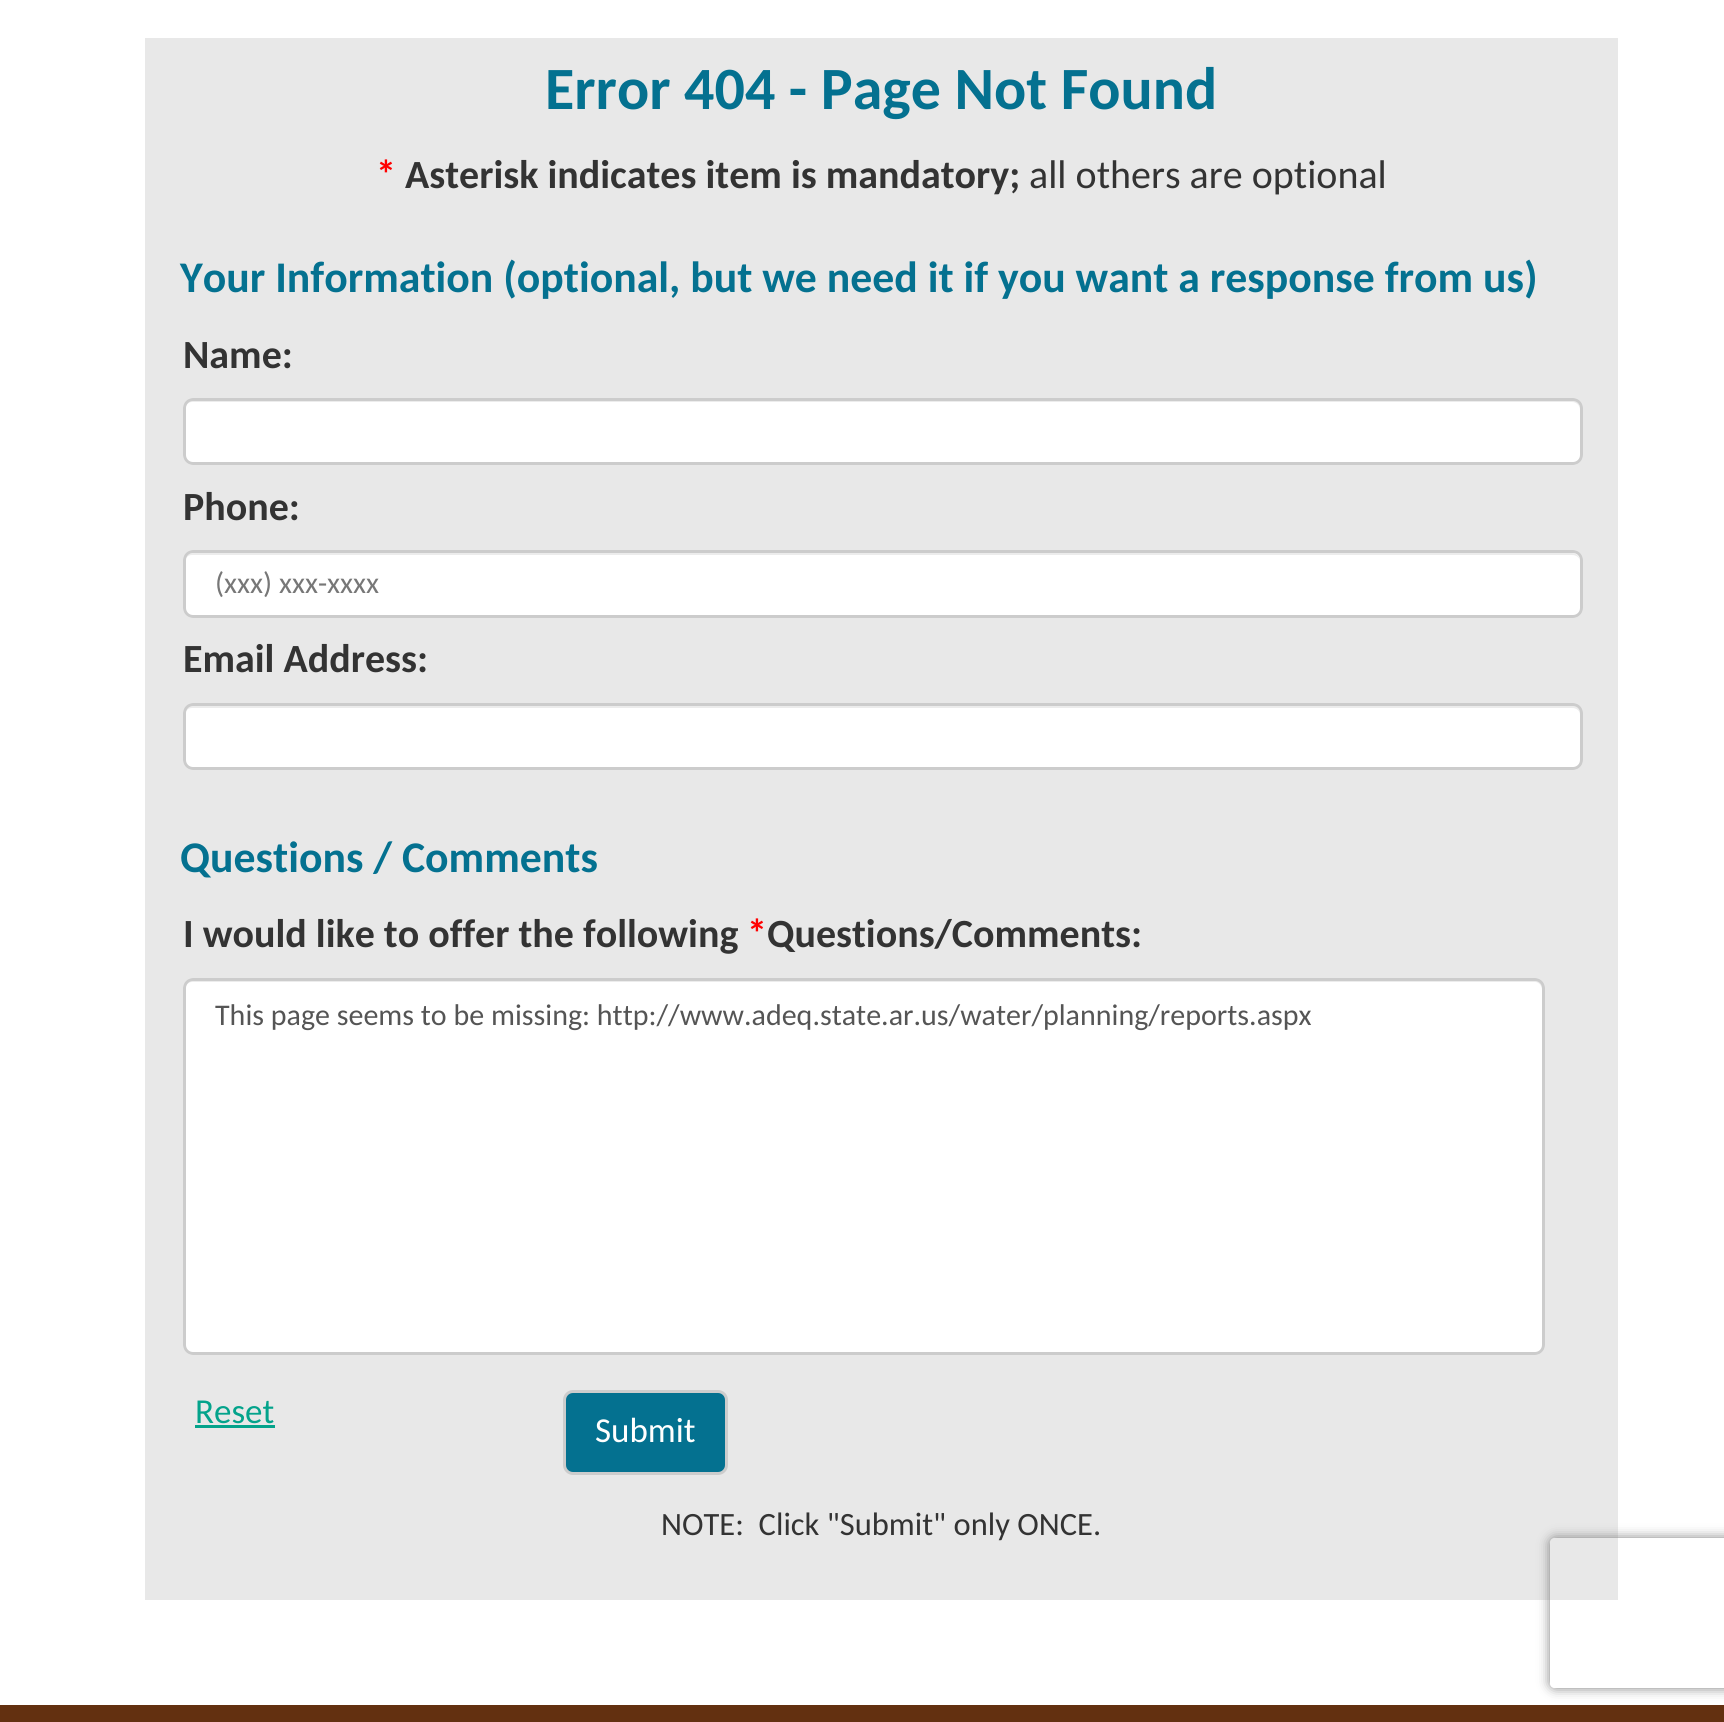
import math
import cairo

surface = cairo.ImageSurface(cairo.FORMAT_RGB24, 1724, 1722)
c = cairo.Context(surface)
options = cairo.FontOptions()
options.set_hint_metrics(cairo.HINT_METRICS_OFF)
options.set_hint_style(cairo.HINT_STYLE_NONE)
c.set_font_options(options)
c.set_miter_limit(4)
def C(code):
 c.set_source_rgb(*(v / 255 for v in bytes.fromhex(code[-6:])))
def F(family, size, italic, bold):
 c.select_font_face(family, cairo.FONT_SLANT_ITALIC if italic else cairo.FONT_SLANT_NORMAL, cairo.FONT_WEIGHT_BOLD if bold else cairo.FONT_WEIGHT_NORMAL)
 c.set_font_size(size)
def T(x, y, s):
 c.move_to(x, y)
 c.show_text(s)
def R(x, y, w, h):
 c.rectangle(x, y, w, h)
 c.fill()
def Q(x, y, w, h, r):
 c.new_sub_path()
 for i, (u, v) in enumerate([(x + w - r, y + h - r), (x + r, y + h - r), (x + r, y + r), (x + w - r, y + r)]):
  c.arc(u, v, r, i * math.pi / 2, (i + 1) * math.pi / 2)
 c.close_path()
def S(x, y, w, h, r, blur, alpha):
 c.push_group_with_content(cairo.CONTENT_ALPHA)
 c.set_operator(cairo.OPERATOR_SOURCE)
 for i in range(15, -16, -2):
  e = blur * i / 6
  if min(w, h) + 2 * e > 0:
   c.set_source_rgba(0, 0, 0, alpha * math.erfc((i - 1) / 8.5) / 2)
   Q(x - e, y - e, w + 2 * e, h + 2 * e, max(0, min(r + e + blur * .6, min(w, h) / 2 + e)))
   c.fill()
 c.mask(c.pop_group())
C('ffffff')
c.paint()
C('e8e8e8')
R(145,38,1473,1562)
F('Carlito',60,0,1)
C('047190')
T(545,109,'Error 404 - Page Not Found')
F('Carlito',40,0,1)
C('ff0000')
T(376,188,'*')
C('333333')
T(405,188,'Asterisk indicates item is mandatory;')
F('Carlito',40,0,0)
T(1029,188,'all others are optional')
F('Carlito',43.75,0,1)
C('047190')
T(180,292,'Your Information (optional, but we need it if you want a response from us)')
F('Carlito',40,0,1)
C('333333')
T(183,368,'Name:')
C('ffffff')
Q(183,398,1400,67,10)
c.fill()
C('ececec')
c.new_path()
c.move_to(192,402)
c.line_to(1572,402)
c.curve_to(1577,402,1580,406,1580,410)
c.line_to(1580,408)
c.curve_to(1580,404,1576,400,1572,400)
c.line_to(193,400)
c.curve_to(189,400,185,404,185,408)
c.line_to(185,410)
c.curve_to(185,406,188,402,192,402)
c.close_path()
c.fill()
Q(184.5,399.5,1397,64,8.5)
C('cccccc')
c.set_line_width(3)
c.stroke()
C('333333')
T(183,520,'Phone:')
C('ffffff')
Q(183,550,1400,68,10)
c.fill()
C('ececec')
c.new_path()
c.move_to(192,555)
c.line_to(1572,555)
c.curve_to(1577,555,1580,558,1580,562)
c.curve_to(1580,557,1577,553,1572,553)
c.line_to(193,553)
c.curve_to(188,553,185,557,185,562)
c.curve_to(185,558,188,555,192,555)
c.close_path()
c.fill()
Q(184.5,551.5,1397,65,8.5)
C('cccccc')
c.stroke()
F('Carlito',30,0,0)
C('777777')
T(215,593,'(xxx) xxx-xxxx')
F('Carlito',40,0,1)
C('333333')
T(183,672,'Email Address:')
C('ffffff')
Q(183,703,1400,67,10)
c.fill()
C('ececec')
c.new_path()
c.move_to(192,708)
c.line_to(1572,708)
c.curve_to(1577,708,1580,711,1580,715)
c.line_to(1580,713)
c.curve_to(1580,709,1576,705,1572,705)
c.line_to(193,705)
c.curve_to(189,705,185,709,185,713)
c.line_to(185,715)
c.curve_to(185,711,188,708,192,708)
c.close_path()
c.fill()
Q(184.5,704.5,1397,64,8.5)
C('cccccc')
c.stroke()
F('Carlito',43.75,0,1)
C('047190')
T(180,872,'Questions / Comments')
F('Carlito',40,0,1)
C('333333')
T(183,947,'I would like to offer the following')
C('ff0000')
T(747,947,'*')
C('333333')
T(767,947,'Questions/Comments:')
C('ffffff')
Q(183,978,1362,377,10)
c.fill()
C('ececec')
c.new_path()
c.move_to(192,982)
c.line_to(1535,982)
c.curve_to(1539,982,1542,986,1542,990)
c.line_to(1542,1349)
c.curve_to(1543,1348,1543,1346,1543,1345)
c.line_to(1543,988)
c.curve_to(1543,984,1539,980,1535,980)
c.line_to(193,980)
c.curve_to(189,980,185,984,185,988)
c.line_to(185,990)
c.curve_to(185,986,188,982,192,982)
c.close_path()
c.fill()
Q(184.5,979.5,1359,374,8.5)
C('cccccc')
c.stroke()
F('Carlito',30,0,0)
C('555555')
T(215,1025,'This page seems to be missing: http://www.adeq.state.ar.us/water/planning/reports.aspx')
F('Carlito',35,0,0)
C('03a38b')
T(195,1423,'Reset')
R(195,1425,80,3)
C('047190')
Q(564.5,1391.5,162,82,8.5)
c.fill_preserve()
C('cccccc')
c.stroke()
C('ffffff')
T(595,1442,'Submit')
F('Carlito',32.5,0,0)
C('333333')
T(661,1535,'NOTE:  Click "Submit" only ONCE.')
C('633010')
R(0,1705,1724,17)
c.save()
c.set_fill_rule(cairo.FILL_RULE_EVEN_ODD)
c.new_path()
c.move_to(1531,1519)
c.line_to(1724,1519)
c.line_to(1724,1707)
c.line_to(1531,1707)
c.close_path()
c.move_to(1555,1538)
c.line_to(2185,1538)
c.curve_to(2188,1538,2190,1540,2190,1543)
c.line_to(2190,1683)
c.curve_to(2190,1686,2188,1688,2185,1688)
c.line_to(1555,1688)
c.curve_to(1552,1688,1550,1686,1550,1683)
c.line_to(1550,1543)
c.curve_to(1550,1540,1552,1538,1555,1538)
c.close_path()
c.clip()
C('808080')
S(1550,1538,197,150,5,6,1)
c.restore()
surface.write_to_png('o.png')
